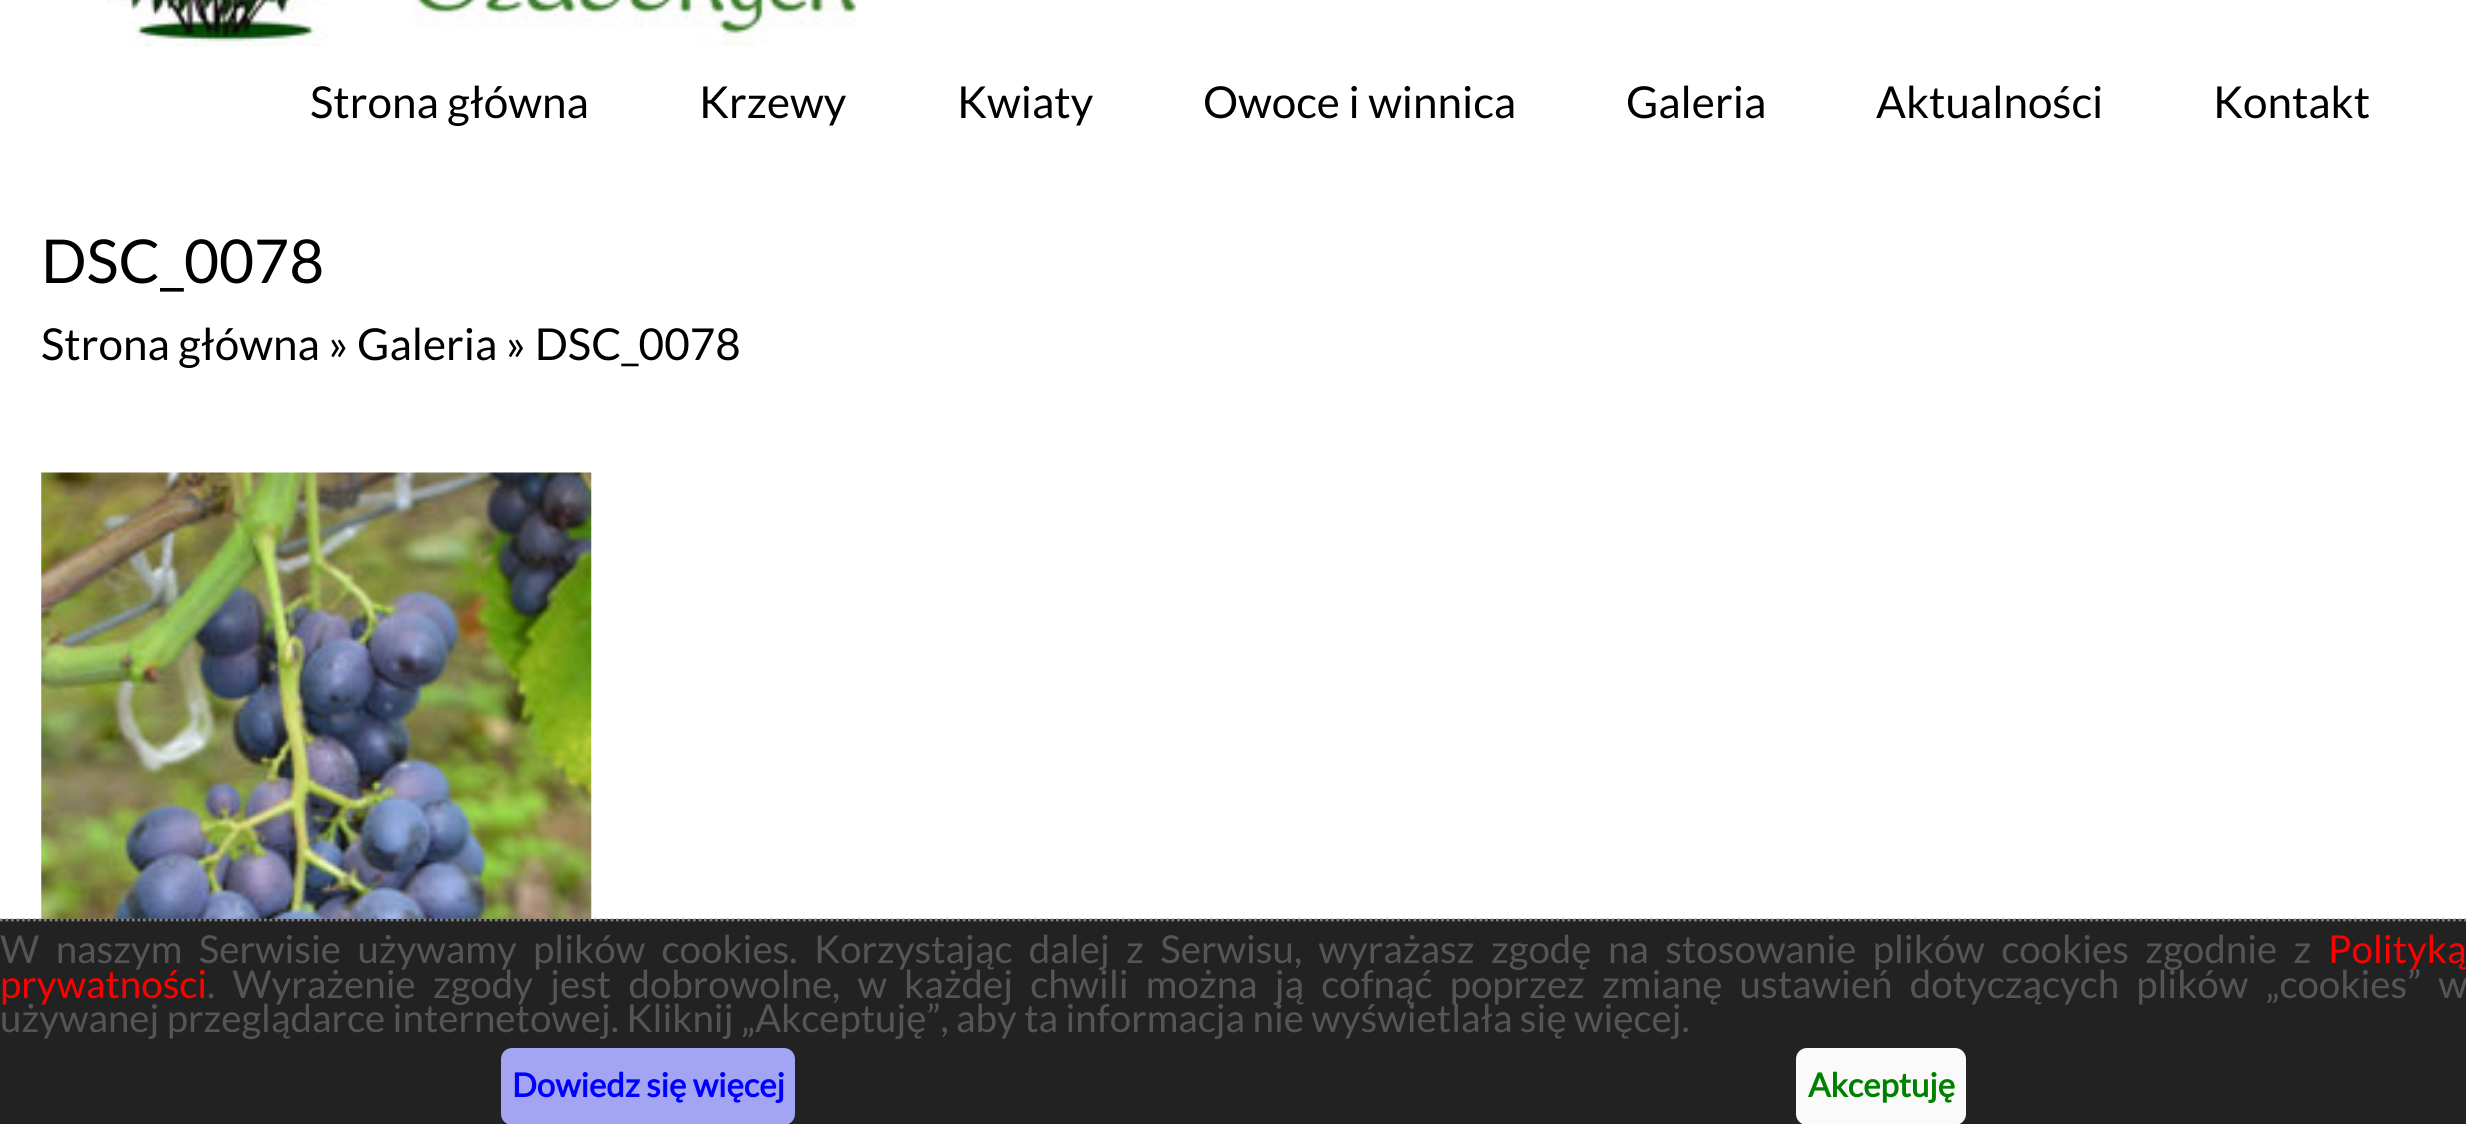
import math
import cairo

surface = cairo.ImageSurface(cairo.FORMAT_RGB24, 2466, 1124)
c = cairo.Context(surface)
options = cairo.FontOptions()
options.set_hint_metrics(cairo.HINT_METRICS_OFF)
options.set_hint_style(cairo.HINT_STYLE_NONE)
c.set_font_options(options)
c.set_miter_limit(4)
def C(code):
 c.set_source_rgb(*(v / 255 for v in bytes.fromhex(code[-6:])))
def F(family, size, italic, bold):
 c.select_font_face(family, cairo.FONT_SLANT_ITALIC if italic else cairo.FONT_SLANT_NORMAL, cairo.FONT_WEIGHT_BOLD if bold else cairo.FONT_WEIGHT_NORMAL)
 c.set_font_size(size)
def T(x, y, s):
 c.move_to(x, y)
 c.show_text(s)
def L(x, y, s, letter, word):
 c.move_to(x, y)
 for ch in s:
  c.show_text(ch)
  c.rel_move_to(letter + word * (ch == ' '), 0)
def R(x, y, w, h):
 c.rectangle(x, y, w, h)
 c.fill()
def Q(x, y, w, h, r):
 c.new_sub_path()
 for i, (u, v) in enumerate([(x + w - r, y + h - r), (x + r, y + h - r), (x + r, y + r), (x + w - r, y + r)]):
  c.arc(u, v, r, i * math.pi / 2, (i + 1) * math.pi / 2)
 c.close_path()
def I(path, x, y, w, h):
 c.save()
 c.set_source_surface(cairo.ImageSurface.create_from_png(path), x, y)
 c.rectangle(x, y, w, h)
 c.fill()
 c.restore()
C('ffffff')
c.paint()
I('1.png',107,0,750,47)
F('Lato',44,0,0)
C('000000')
T(310,118,'Strona główna')
T(699,118,'Krzewy')
T(957,118,'Kwiaty')
T(1203,118,'Owoce i winnica')
T(1626,118,'Galeria')
T(1876,118,'Aktualności')
T(2213,118,'Kontakt')
F('Lato',60.5,0,0)
T(41,283,'DSC_0078')
F('Lato',44,0,0)
T(41,360,'Strona główna » Galeria » DSC_0078')
I('2.png',41,472,551,447)
C('222222')
R(0,919,2466,205)
c.new_path()
c.move_to(0,920)
c.line_to(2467,920)
C('7f7f7f')
c.set_line_width(2.8)
c.set_dash([2.75,2.75])
c.stroke()
F('Lato',38.5,0,0)
C('555555')
L(0,963,'W naszym Serwisie używamy plików cookies. Korzystając dalej z Serwisu, wyrażasz zgodę na stosowanie plików cookies zgodnie z',0,9)
C('ff0000')
T(2328,963,'Polityką')
T(0,998,'prywatności')
C('555555')
L(207,998,'. Wyrażenie zgody jest dobrowolne, w każdej chwili można ją cofnąć poprzez zmianę ustawień dotyczących plików „cookies” w',0,9.75)
T(0,1032,'używanej przeglądarce internetowej. Kliknij „Akceptuję”, aby ta informacja nie wyświetlała się więcej.')
C('a4a4f4')
Q(501,1048,294,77,11)
c.fill()
F('Lato',33,0,1)
C('0000ff')
T(512,1097,'Dowiedz się więcej')
C('fafafa')
Q(1796,1048,170,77,11)
c.fill()
C('008000')
T(1808,1097,'Akceptuję')
surface.write_to_png('o.png')
